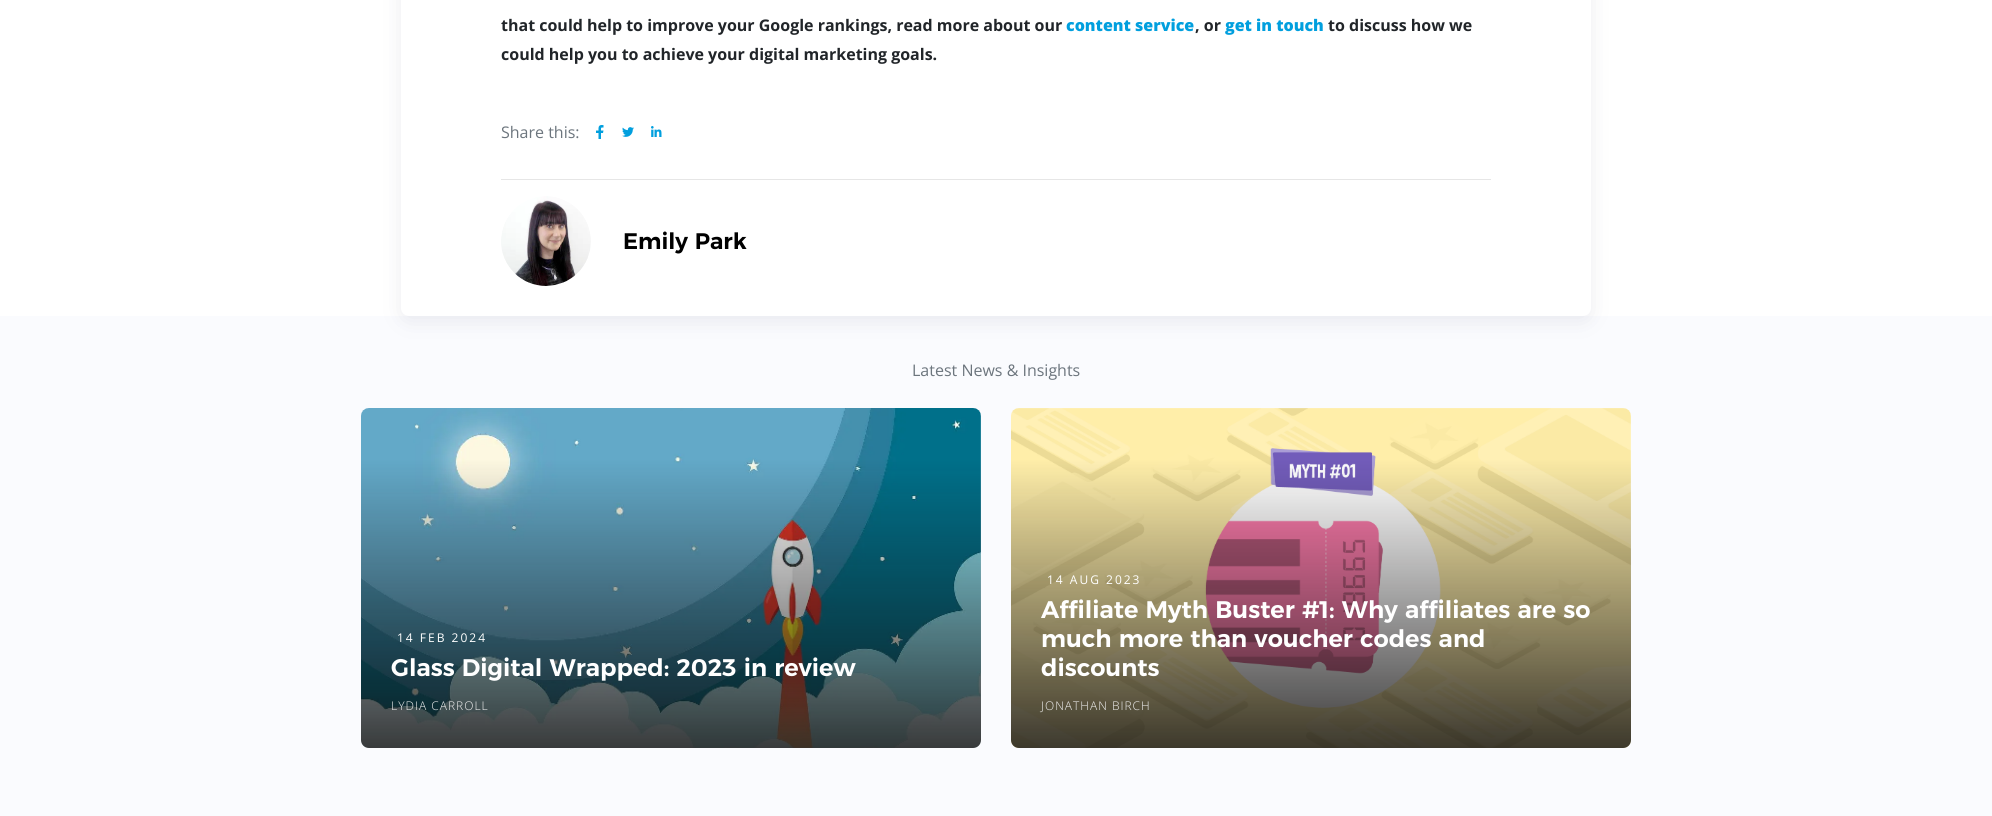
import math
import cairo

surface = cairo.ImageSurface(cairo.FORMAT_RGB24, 1992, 816)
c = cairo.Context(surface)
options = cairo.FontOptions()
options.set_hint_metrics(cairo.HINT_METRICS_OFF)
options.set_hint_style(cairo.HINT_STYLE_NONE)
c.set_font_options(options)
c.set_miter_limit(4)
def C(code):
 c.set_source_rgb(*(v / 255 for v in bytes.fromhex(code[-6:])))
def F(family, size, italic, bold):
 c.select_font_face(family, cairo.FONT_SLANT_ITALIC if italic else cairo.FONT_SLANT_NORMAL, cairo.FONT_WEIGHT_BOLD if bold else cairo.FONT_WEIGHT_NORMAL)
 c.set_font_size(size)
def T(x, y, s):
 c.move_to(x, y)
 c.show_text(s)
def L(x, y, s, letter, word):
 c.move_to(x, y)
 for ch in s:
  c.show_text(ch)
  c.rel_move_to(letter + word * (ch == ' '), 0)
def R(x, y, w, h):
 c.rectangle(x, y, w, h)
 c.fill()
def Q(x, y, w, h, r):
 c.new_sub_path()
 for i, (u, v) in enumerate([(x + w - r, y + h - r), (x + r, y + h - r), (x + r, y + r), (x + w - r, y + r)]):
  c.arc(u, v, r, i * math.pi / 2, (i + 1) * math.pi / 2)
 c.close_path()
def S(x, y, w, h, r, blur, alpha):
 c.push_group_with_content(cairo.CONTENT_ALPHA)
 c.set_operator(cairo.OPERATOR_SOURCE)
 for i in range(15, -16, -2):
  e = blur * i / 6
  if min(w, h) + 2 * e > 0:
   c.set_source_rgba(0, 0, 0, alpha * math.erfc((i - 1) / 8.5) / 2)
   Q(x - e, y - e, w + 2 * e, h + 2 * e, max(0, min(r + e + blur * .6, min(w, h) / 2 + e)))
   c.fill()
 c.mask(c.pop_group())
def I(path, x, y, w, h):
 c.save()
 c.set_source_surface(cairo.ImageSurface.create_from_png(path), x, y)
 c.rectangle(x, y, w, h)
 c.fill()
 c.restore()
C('fafbfe')
c.paint()
C('ffffff')
R(0,0,1992,316)
C('454360')
S(401,-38,1190,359,8,10,.1)
C('ffffff')
Q(401,-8,1190,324,8)
c.fill()
F('Open Sans',16,0,1)
C('212529')
T(501,31,'that could help to improve your Google rankings, read more about our')
F('Open Sans ExtraBold',16,0,0)
C('019fde')
T(1066,31,'content service')
F('Open Sans',16,0,1)
C('212529')
T(1195,31,', or')
F('Open Sans ExtraBold',16,0,0)
C('019fde')
T(1225,31,'get in touch')
F('Open Sans',16,0,1)
C('212529')
T(1328,31,'to discuss how we')
T(501,60,'could help you to achieve your digital marketing goals.')
F('Open Sans',16,0,0)
C('6c757d')
T(501,138,'Share this:')
I('1.png',596,125,8,14)
I('2.png',622,127,12,10)
I('3.png',651,126,11,11)
C('e6e6e6')
R(501,179,990,1)
I('4.png',501,196,90,90)
F('Montserrat SemiBold',22.5,0,0)
C('000000')
T(623,249,'Emily Park')
F('Open Sans',16,0,0)
C('6c757d')
T(912,376,'Latest News & Insights')
I('5.png',361,408,620,340)
gradient = cairo.LinearGradient(671,459,671,799)
gradient.add_color_stop_rgba(0,0.063,0.059,0.059,0)
gradient.add_color_stop_rgba(.89,0.063,0.059,0.059,.85)
gradient.add_color_stop_rgba(.93,0.063,0.059,0.059,.86)
c.set_source(gradient)
c.new_path()
c.move_to(361,459)
c.line_to(981,459)
c.line_to(981,740)
c.curve_to(981,744.5,977.5,748,973,748)
c.line_to(369,748)
c.curve_to(364.5,748,361,744.5,361,740)
c.close_path()
c.fill()
F('Open Sans',12,0,0)
C('ffffff')
L(397,642,'14 FEB 2024',2,0)
F('Montserrat SemiBold',24,0,0)
T(391,676,'Glass Digital Wrapped: 2023 in review')
F('Open Sans Light',12,0,0)
C('f1f1f1')
L(391,710,'LYDIA CARROLL',1,0)
I('6.png',1011,408,620,340)
gradient = cairo.LinearGradient(1321,459,1321,799)
gradient.add_color_stop_rgba(0,0.063,0.059,0.059,0)
gradient.add_color_stop_rgba(.89,0.063,0.059,0.059,.85)
gradient.add_color_stop_rgba(.93,0.063,0.059,0.059,.86)
c.set_source(gradient)
c.new_path()
c.move_to(1011,459)
c.line_to(1631,459)
c.line_to(1631,740)
c.curve_to(1631,744.5,1627.5,748,1623,748)
c.line_to(1019,748)
c.curve_to(1014.5,748,1011,744.5,1011,740)
c.close_path()
c.fill()
F('Open Sans',12,0,0)
C('ffffff')
L(1047,584,'14 AUG 2023',2,0)
F('Montserrat SemiBold',24,0,0)
T(1041,618,'Affiliate Myth Buster #1: Why affiliates are so')
T(1041,647,'much more than voucher codes and')
T(1041,676,'discounts')
F('Open Sans Light',12,0,0)
C('f1f1f1')
L(1041,710,'JONATHAN BIRCH',1,0)
surface.write_to_png('o.png')
